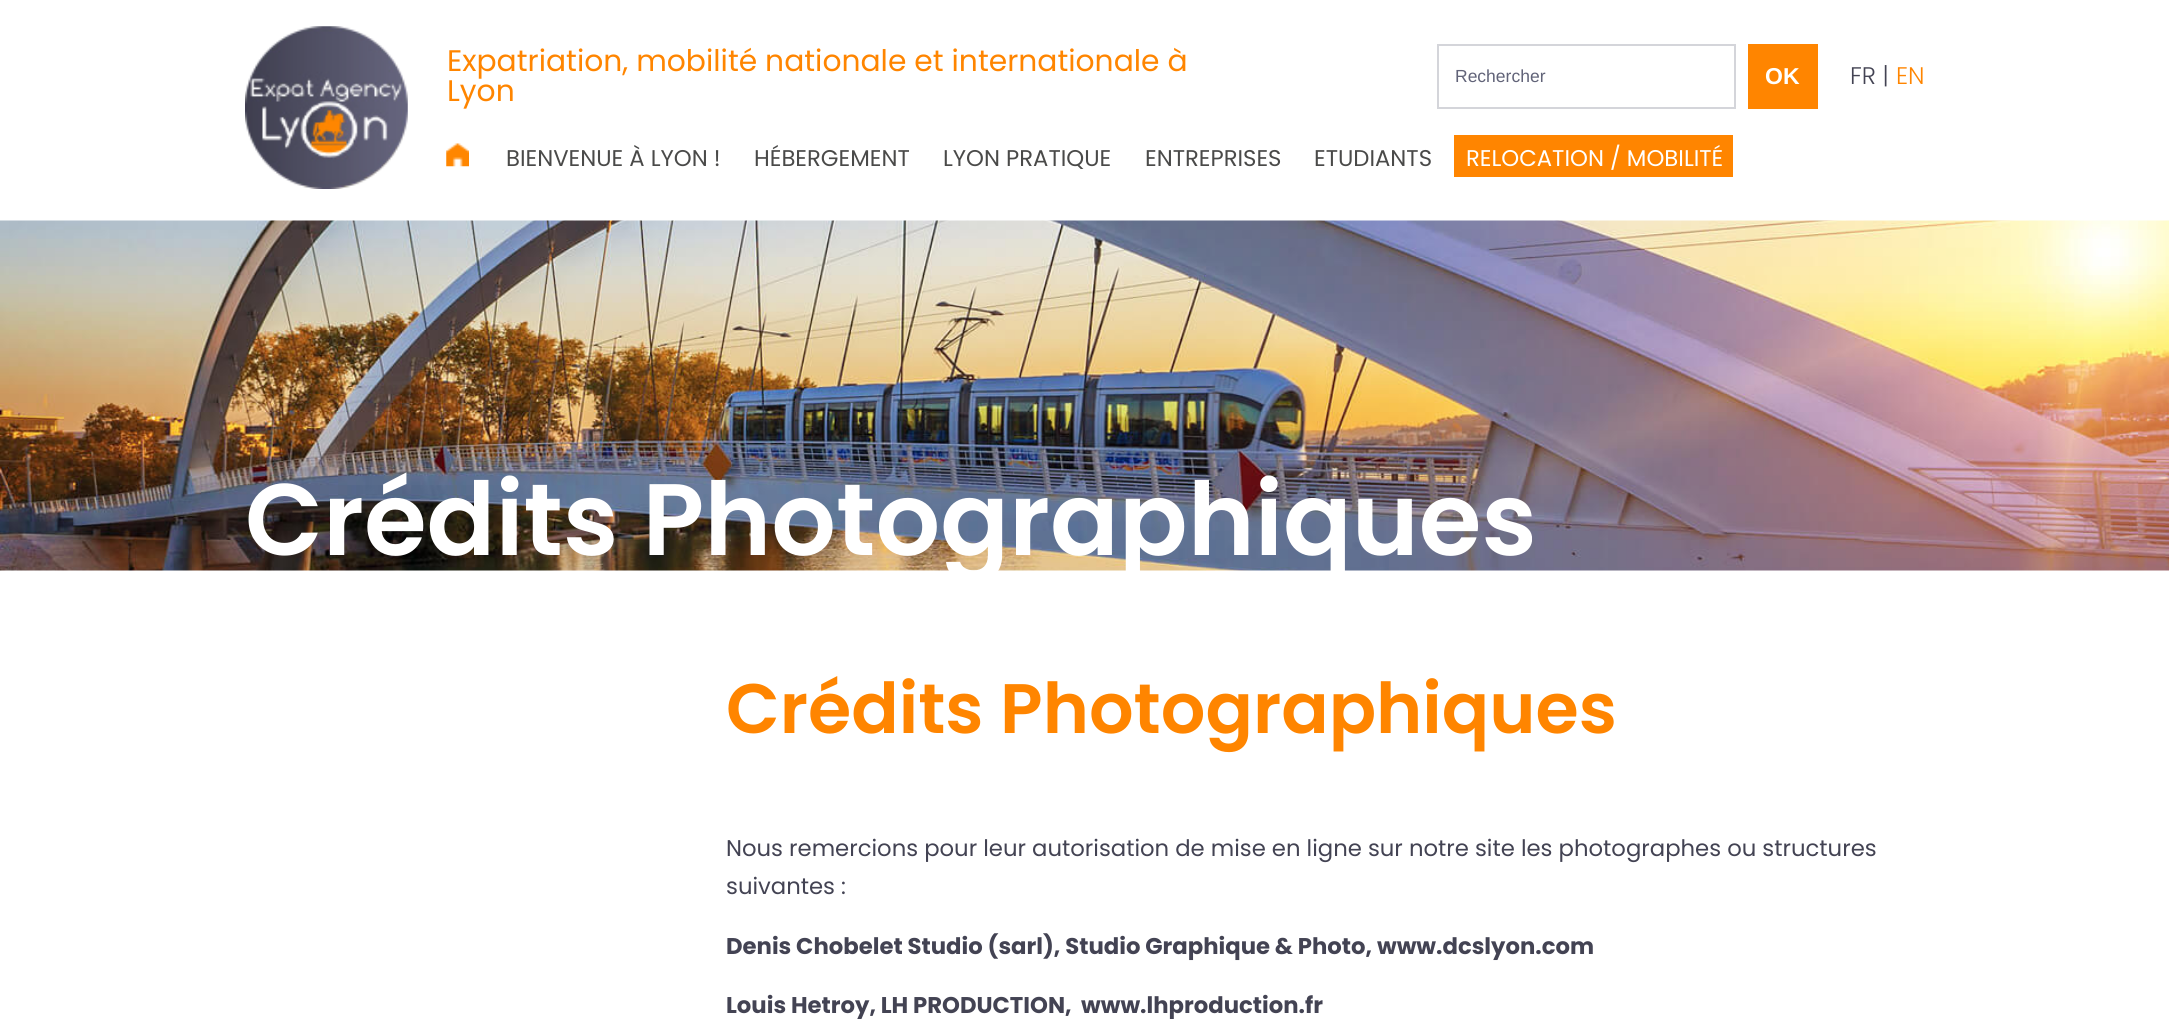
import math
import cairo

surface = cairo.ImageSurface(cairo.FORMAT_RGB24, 2169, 1019)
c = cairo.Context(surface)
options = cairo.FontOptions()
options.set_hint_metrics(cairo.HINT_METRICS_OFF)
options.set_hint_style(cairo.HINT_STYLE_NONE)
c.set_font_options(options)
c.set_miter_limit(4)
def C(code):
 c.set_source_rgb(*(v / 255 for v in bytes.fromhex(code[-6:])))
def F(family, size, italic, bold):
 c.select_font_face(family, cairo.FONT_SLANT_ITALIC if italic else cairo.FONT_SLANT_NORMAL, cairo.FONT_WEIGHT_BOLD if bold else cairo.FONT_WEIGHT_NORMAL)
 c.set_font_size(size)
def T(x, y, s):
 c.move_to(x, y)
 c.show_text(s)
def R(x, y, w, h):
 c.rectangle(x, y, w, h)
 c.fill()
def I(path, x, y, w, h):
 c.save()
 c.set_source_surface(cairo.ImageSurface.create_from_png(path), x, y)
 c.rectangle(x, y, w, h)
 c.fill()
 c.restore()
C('ffffff')
c.paint()
I('1.png',245,26,163,163)
F('Poppins',29.75,0,0)
C('ff8500')
T(447,71,'Expatriation, mobilité nationale et internationale à')
T(447,101,'Lyon')
c.rectangle(1438,45,297,63)
C('d4d5da')
c.stroke()
F('Liberation Sans',17.5,0,0)
C('616378')
T(1455,82,'Rechercher')
C('ff8500')
R(1748,44,70,65)
F('Liberation Sans',23,0,1)
C('ffffff')
T(1765,84,'OK')
F('Poppins Light',24,0,0)
C('434353')
T(1850,84,'FR |')
C('ff8500')
T(1896,84,'EN')
I('2.png',446,143,23,24)
F('Poppins',22.75,0,0)
C('4a4a49')
T(506,166,'BIENVENUE À LYON !')
T(754,166,'HÉBERGEMENT')
T(943,166,'LYON PRATIQUE')
T(1145,166,'ENTREPRISES')
T(1314,166,'ETUDIANTS')
C('ff8500')
R(1454,135,279,42)
C('ffffff')
T(1466,166,'RELOCATION / MOBILITÉ')
I('3.png',0,220,2169,351)
c.save()
c.rectangle(0,221,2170,350)
c.clip()
F('Poppins SemiBold',101.5,0,0)
T(245,555,'Crédits Photographiques')
c.restore()
F('Poppins SemiBold',70,0,0)
C('ff8500')
T(726,733,'Crédits Photographiques')
F('Poppins',22.75,0,0)
C('434353')
T(726,856,'Nous remercions pour leur autorisation de mise en ligne sur notre site les photographes ou structures')
T(726,894,'suivantes :')
F('Poppins',22.75,0,1)
T(726,954,'Denis Chobelet Studio (sarl), Studio Graphique & Photo, www.dcslyon.com')
T(726,1013,'Louis Hetroy, LH PRODUCTION,')
T(1081,1013,'www.lhproduction.fr')
surface.write_to_png('o.png')
